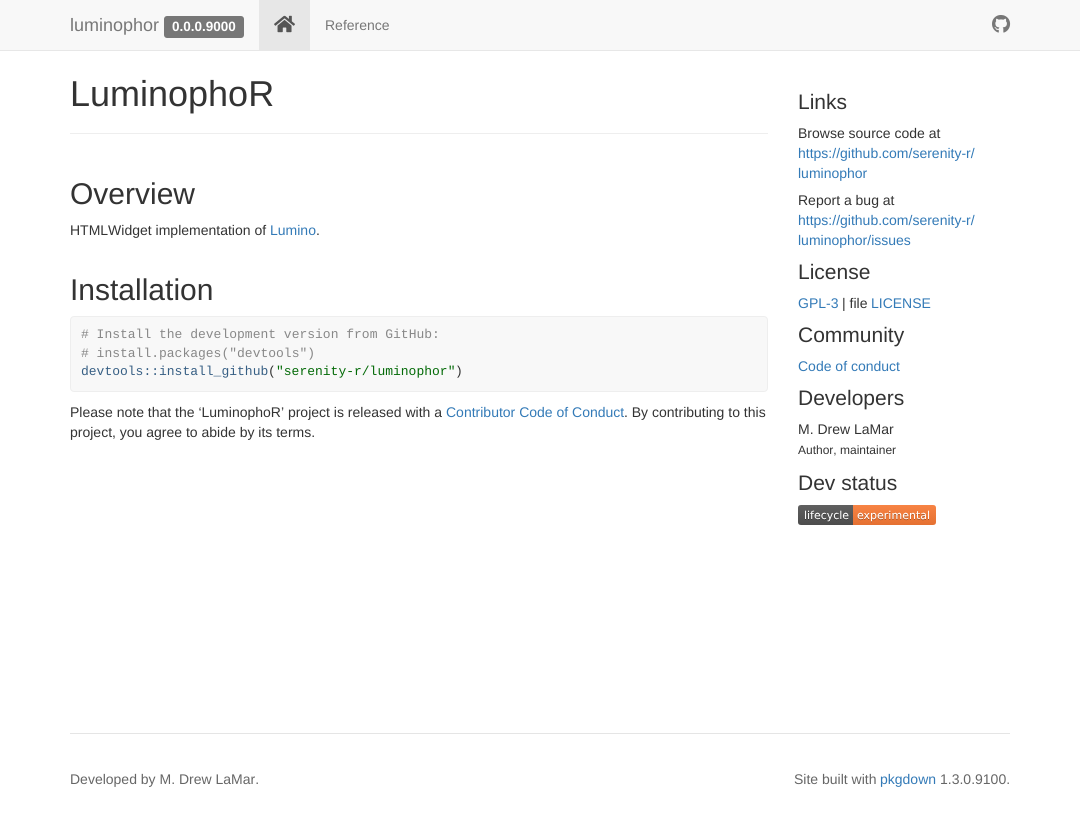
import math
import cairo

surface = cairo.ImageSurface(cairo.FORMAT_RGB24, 1080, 825)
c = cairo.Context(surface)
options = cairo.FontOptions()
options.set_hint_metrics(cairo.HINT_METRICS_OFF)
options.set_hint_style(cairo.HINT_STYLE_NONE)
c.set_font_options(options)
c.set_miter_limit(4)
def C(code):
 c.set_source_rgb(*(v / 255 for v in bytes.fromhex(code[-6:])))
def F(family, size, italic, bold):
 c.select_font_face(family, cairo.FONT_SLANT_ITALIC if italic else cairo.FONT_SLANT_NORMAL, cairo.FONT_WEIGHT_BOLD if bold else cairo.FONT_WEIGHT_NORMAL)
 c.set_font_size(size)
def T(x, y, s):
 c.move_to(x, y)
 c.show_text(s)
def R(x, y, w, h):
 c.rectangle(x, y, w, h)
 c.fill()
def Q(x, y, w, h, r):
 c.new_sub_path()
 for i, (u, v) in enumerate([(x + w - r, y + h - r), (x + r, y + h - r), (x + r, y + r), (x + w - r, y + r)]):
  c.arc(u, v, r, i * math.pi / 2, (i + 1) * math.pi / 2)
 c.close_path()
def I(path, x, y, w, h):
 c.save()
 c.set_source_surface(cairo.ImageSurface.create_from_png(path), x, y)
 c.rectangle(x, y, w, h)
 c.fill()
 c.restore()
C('ffffff')
c.paint()
C('f8f8f8')
R(0,0,1080,50)
C('e7e7e7')
R(0,50,1080,1)
F('Liberation Sans',18,0,0)
C('777777')
T(70,31,'luminophor')
Q(164,16,80,22,3)
c.fill()
F('Liberation Sans',13.5,0,1)
C('ffffff')
T(172,31,'0.0.0.9000')
C('e7e7e7')
R(259,0,51,50)
I('1.png',274,15,21,18)
F('Liberation Sans',14,0,0)
C('777777')
T(325,30,'Reference')
I('2.png',992,15,19,18)
C('eeeeee')
R(70,133,698,1)
F('Liberation Sans',36,0,0)
C('333333')
T(70,106,'LuminophoR')
F('Liberation Sans',30,0,0)
T(70,204,'Overview')
F('Liberation Sans',14,0,0)
T(70,235,'HTMLWidget implementation of')
C('337ab7')
T(270,235,'Lumino')
C('333333')
T(316,235,'.')
F('Liberation Sans',30,0,0)
T(70,300,'Installation')
C('f8f8f8')
Q(70.5,316.5,697,75,3.5)
c.fill_preserve()
C('eeeeee')
c.set_line_width(1)
c.stroke()
F('Liberation Mono',13,0,0)
C('888888')
T(81,338,'# Install the development version from GitHub:')
T(81,357,'# install.packages("devtools")')
C('375f84')
T(81,375,'devtools::install_github')
C('333333')
T(268,375,'(')
C('036a07')
T(276,375,'"serenity-r/luminophor"')
C('333333')
T(455,375,')')
F('Liberation Sans',14,0,0)
T(70,417,'Please note that the ‘LuminophoR’ project is released with a')
C('337ab7')
T(446,417,'Contributor Code of Conduct')
C('333333')
T(624,417,'. By contributing to this')
T(70,437,'project, you agree to abide by its terms.')
F('Liberation Sans',21,0,0)
T(798,109,'Links')
F('Liberation Sans',14,0,0)
T(798,138,'Browse source code at')
C('337ab7')
T(798,158,'https://github.com/serenity-r/')
T(798,178,'luminophor')
C('333333')
T(798,205,'Report a bug at')
C('337ab7')
T(798,225,'https://github.com/serenity-r/')
T(798,245,'luminophor/issues')
F('Liberation Sans',21,0,0)
C('333333')
T(798,279,'License')
F('Liberation Sans',14,0,0)
C('337ab7')
T(798,308,'GPL-3')
C('333333')
T(842,308,'| file')
C('337ab7')
T(871,308,'LICENSE')
F('Liberation Sans',21,0,0)
C('333333')
T(798,342,'Community')
F('Liberation Sans',14,0,0)
C('337ab7')
T(798,371,'Code of conduct')
F('Liberation Sans',21,0,0)
C('333333')
T(798,405,'Developers')
F('Liberation Sans',14,0,0)
T(798,434,'M. Drew LaMar')
F('Liberation Sans',12,0,0)
T(798,454,'Author, maintainer')
F('Liberation Sans',21,0,0)
T(798,490,'Dev status')
I('3.png',798,505,138,20)
C('e5e5e5')
R(70,733,940,1)
F('Liberation Sans',14,0,0)
C('666666')
T(70,784,'Developed by M. Drew LaMar.')
T(794,784,'Site built with')
C('337ab7')
T(880,784,'pkgdown')
C('666666')
T(940,784,'1.3.0.9100.')
surface.write_to_png('o.png')
